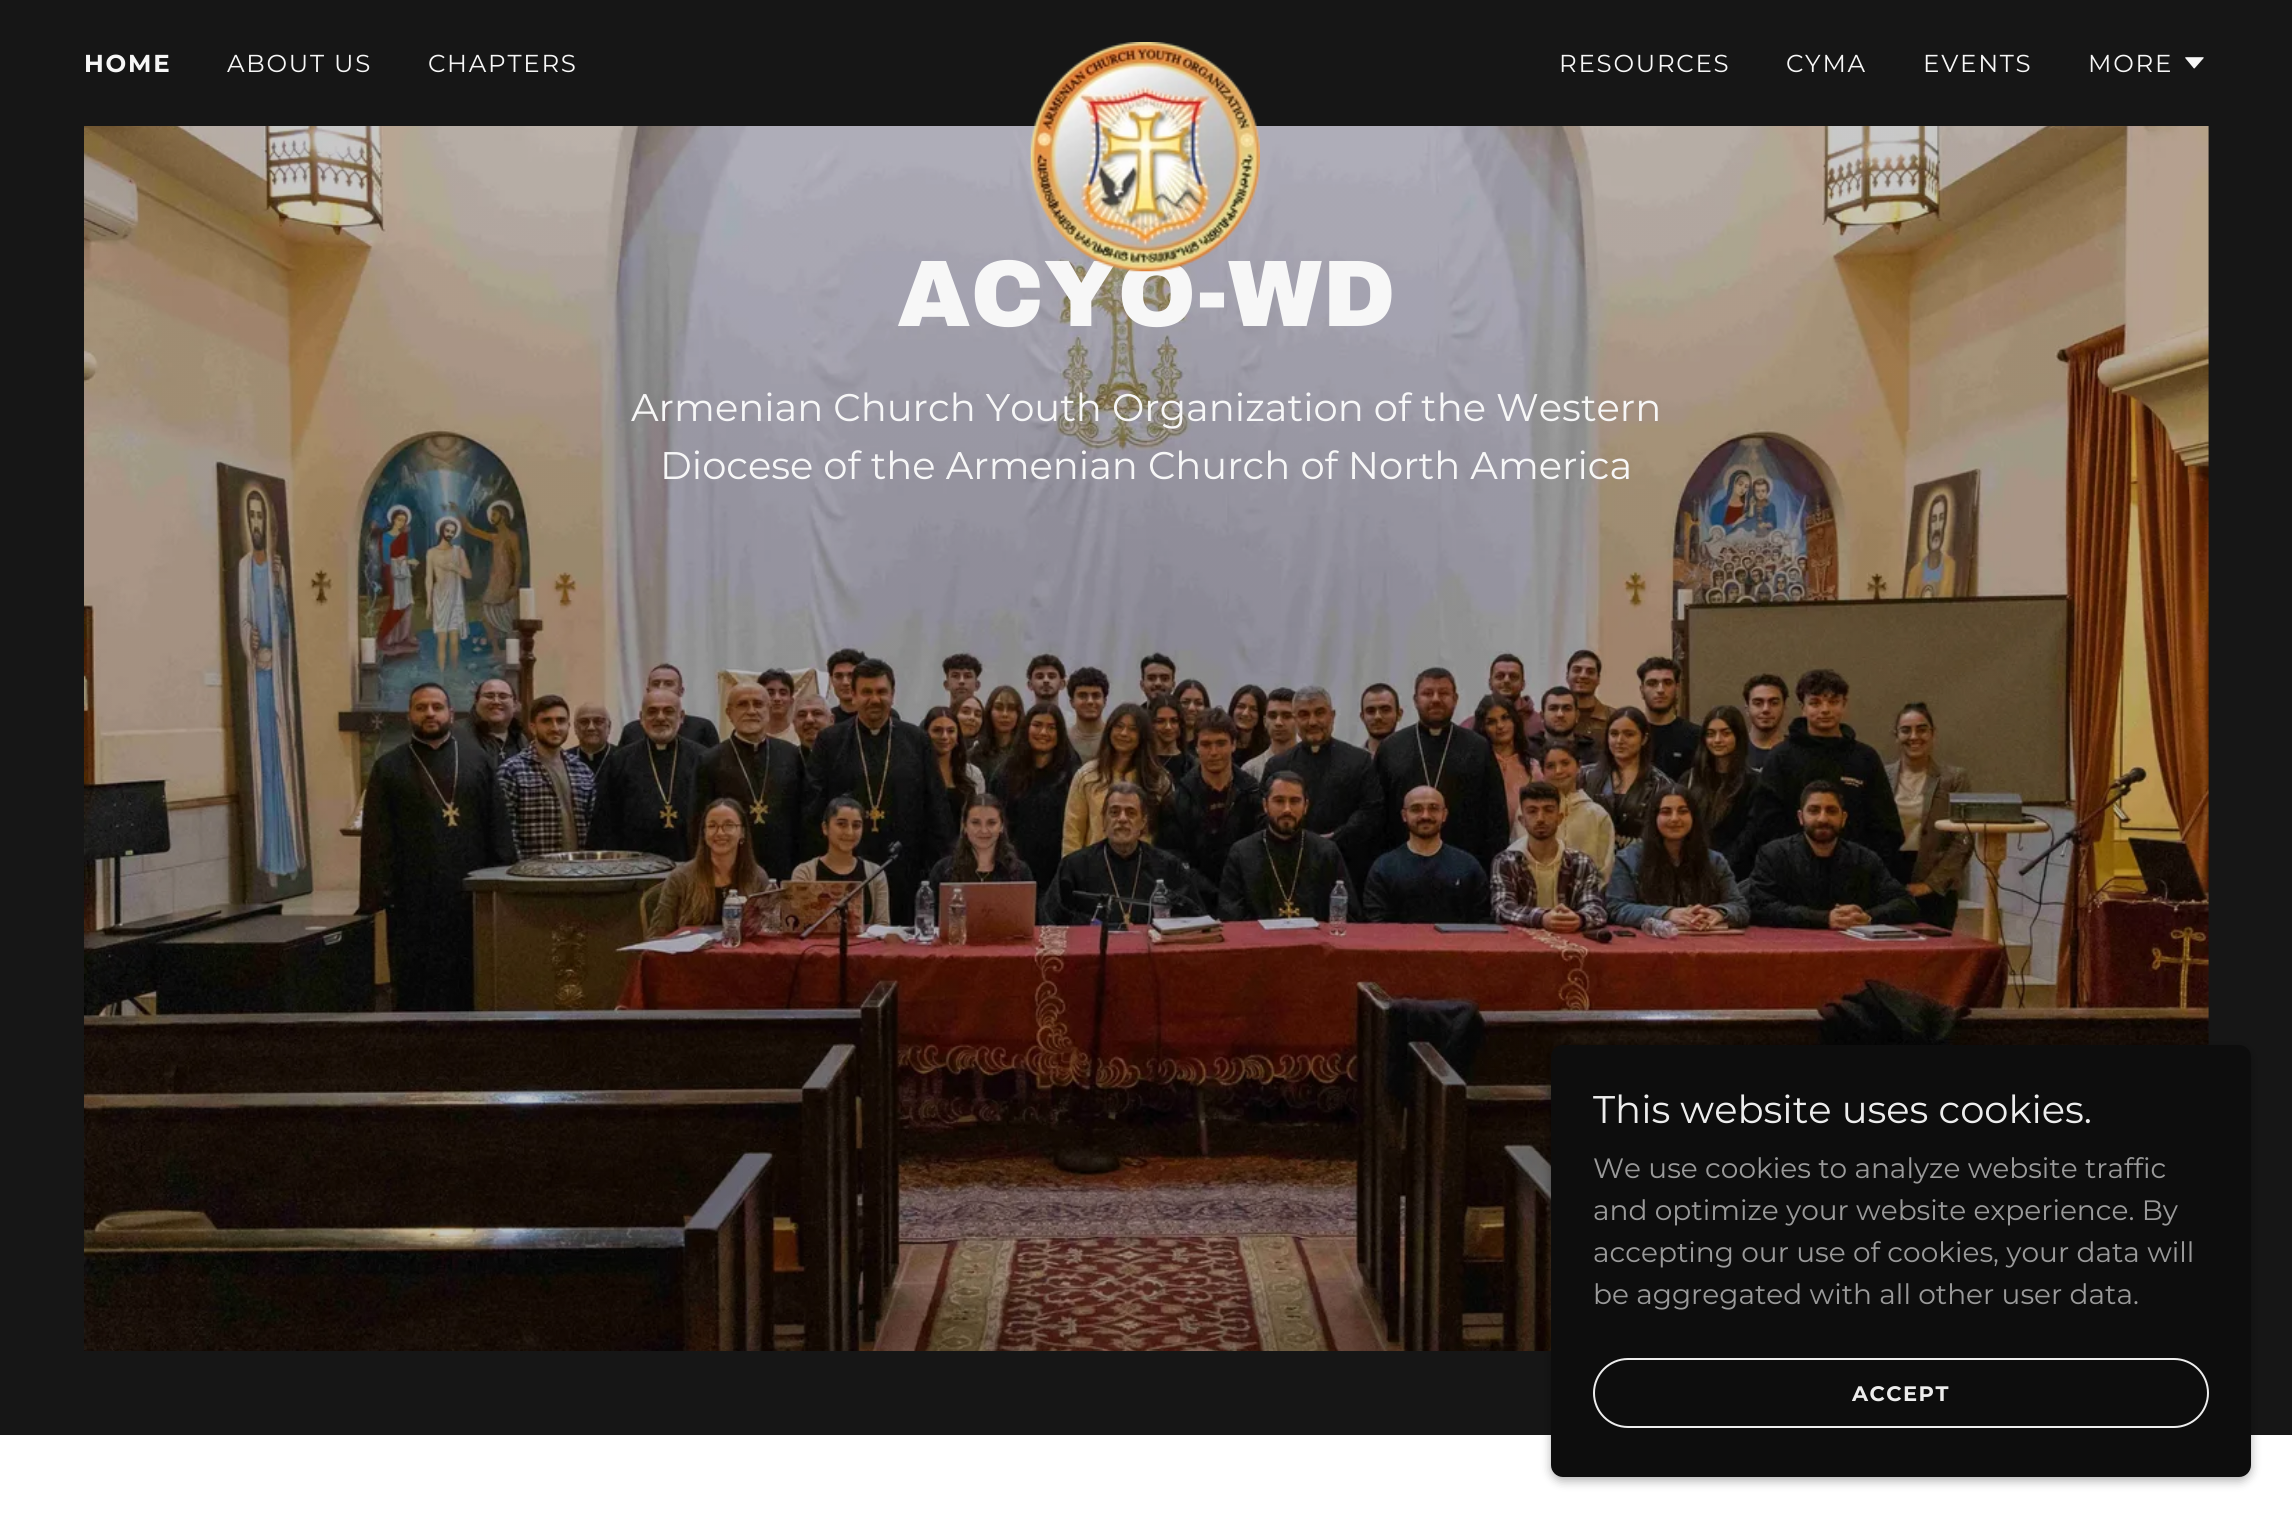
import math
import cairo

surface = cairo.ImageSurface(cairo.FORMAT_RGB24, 2292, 1519)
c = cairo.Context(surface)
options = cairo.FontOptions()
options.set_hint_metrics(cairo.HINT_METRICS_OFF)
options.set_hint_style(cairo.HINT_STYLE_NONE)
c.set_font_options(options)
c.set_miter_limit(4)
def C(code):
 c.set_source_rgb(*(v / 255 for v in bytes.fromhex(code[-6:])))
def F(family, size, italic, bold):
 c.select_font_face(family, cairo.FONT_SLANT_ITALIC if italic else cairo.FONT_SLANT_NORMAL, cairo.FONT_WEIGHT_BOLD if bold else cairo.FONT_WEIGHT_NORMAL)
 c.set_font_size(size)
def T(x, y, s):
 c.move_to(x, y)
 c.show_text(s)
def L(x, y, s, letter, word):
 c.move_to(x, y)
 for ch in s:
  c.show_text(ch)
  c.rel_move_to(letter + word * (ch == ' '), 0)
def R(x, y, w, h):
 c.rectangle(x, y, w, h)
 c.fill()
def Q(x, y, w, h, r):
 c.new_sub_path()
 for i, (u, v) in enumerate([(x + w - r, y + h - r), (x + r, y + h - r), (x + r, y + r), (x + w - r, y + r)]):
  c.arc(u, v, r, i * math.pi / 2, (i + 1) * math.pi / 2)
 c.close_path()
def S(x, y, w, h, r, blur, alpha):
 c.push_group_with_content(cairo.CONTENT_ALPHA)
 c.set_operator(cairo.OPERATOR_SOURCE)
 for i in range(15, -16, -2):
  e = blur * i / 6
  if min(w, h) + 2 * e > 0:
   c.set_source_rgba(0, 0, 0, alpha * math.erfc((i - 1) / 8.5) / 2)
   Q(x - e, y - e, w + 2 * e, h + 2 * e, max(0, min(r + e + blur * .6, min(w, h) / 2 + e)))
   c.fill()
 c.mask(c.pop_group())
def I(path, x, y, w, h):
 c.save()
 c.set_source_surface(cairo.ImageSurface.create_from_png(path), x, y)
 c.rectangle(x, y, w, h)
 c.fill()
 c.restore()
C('161616')
c.paint()
F('Montserrat',24.5,0,1)
C('f7f7f7')
L(84,72,'HOME',1.75,0)
F('Montserrat',24.5,0,0)
L(227,72,'ABOUT US',1.75,0)
L(428,72,'CHAPTERS',1.75,0)
I('3.png',84,126,2125,1225)
F('Archivo Black Black',94.5,0,0)
T(897,326,'ACYO-WD')
I('1.png',1030,42,230,230)
F('Montserrat',24.5,0,0)
L(1559,72,'RESOURCES',1.75,0)
L(1786,72,'CYMA',1.75,0)
L(1923,72,'EVENTS',1.75,0)
L(2088,72,'MORE',1.75,0)
I('2.png',2185,57,19,12)
F('Montserrat',38.5,0,0)
T(631,421,'Armenian Church Youth Organization of the Western')
T(660,479,'Diocese of the Armenian Church of North America')
C('ffffff')
R(0,1435,2292,84)
C('000000')
S(1551,1048,700,433,12,5,.3)
C('0d0d0d')
Q(1551,1045,700,432,12)
c.fill()
C('ededed')
T(1593,1123,'This website uses cookies.')
F('Montserrat',28,0,0)
C('9a9a9a')
T(1593,1178,'We use cookies to analyze website traffic')
T(1593,1220,'and optimize your website experience. By')
T(1593,1262,'accepting our use of cookies, your data will')
T(1593,1304,'be aggregated with all other user data.')
Q(1594,1359,614,68,34)
C('ededed')
c.stroke()
F('Montserrat',21,0,1)
L(1852,1401,'ACCEPT',1.5,0)
surface.write_to_png('o.png')
